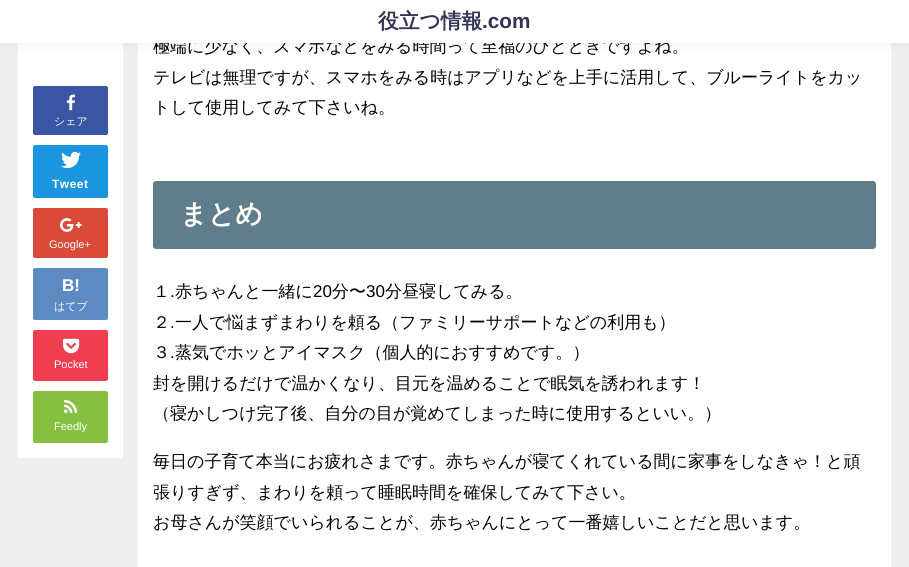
import math
import cairo

surface = cairo.ImageSurface(cairo.FORMAT_RGB24, 909, 567)
c = cairo.Context(surface)
options = cairo.FontOptions()
options.set_hint_metrics(cairo.HINT_METRICS_OFF)
options.set_hint_style(cairo.HINT_STYLE_NONE)
c.set_font_options(options)
c.set_miter_limit(4)
def C(code):
 c.set_source_rgb(*(v / 255 for v in bytes.fromhex(code[-6:])))
def F(family, size, italic, bold):
 c.select_font_face(family, cairo.FONT_SLANT_ITALIC if italic else cairo.FONT_SLANT_NORMAL, cairo.FONT_WEIGHT_BOLD if bold else cairo.FONT_WEIGHT_NORMAL)
 c.set_font_size(size)
def T(x, y, s):
 c.move_to(x, y)
 c.show_text(s)
def L(x, y, s, letter, word):
 c.move_to(x, y)
 for ch in s:
  c.show_text(ch)
  c.rel_move_to(letter + word * (ch == ' '), 0)
def R(x, y, w, h):
 c.rectangle(x, y, w, h)
 c.fill()
def Q(x, y, w, h, r):
 c.new_sub_path()
 for i, (u, v) in enumerate([(x + w - r, y + h - r), (x + r, y + h - r), (x + r, y + r), (x + w - r, y + r)]):
  c.arc(u, v, r, i * math.pi / 2, (i + 1) * math.pi / 2)
 c.close_path()
def S(x, y, w, h, r, blur, alpha):
 c.push_group_with_content(cairo.CONTENT_ALPHA)
 c.set_operator(cairo.OPERATOR_SOURCE)
 for i in range(15, -16, -2):
  e = blur * i / 6
  if min(w, h) + 2 * e > 0:
   c.set_source_rgba(0, 0, 0, alpha * math.erfc((i - 1) / 8.5) / 2)
   Q(x - e, y - e, w + 2 * e, h + 2 * e, max(0, min(r + e + blur * .6, min(w, h) / 2 + e)))
   c.fill()
 c.mask(c.pop_group())
def I(path, x, y, w, h):
 c.save()
 c.set_source_surface(cairo.ImageSurface.create_from_png(path), x, y)
 c.rectangle(x, y, w, h)
 c.fill()
 c.restore()
C('efefef')
c.paint()
C('ffffff')
R(18,43,105,415)
R(138,43,753,524)
C('c8c8c8')
S(0,3,909,43,0,5,.2)
F('WenQuanYi Zen Hei Medium',17,0,0)
C('000000')
T(153,52,'極端に少なく、スマホなどをみる時間って至福のひとときですよね。')
C('ffffff')
R(0,0,909,43)
F('WenQuanYi Zen Hei',20.75,0,1)
C('333355')
T(378,28,'役立つ情報')
F('Liberation Sans',20.75,0,1)
T(482,28,'.com')
C('3b55a5')
Q(33,86,75,49,2)
c.fill()
I('1.png',66,94,9,17)
F('WenQuanYi Zen Hei Medium',11,0,0)
C('ffffff')
T(54,125,'シェア')
C('1b95e0')
Q(33,145,75,53,2)
c.fill()
I('2.png',61,151,20,18)
F('Liberation Sans',12,0,1)
C('ffffff')
L(52,188,'Tweet',.5,0)
C('db4a39')
Q(33,208,75,50,2)
c.fill()
I('3.png',60,218,22,14)
F('Liberation Sans',11,0,0)
C('ffffff')
T(49,248,'Google+')
C('5d8ac1')
Q(33,268,75,52,2)
c.fill()
F('Liberation Sans',17,0,1)
C('ffffff')
T(62,291,'B!')
F('WenQuanYi Zen Hei Medium',11,0,0)
T(54,310,'はてブ')
C('f03e51')
Q(33,330,75,51,2)
c.fill()
I('4.png',63,338,17,16)
F('Liberation Sans',11,0,0)
C('ffffff')
T(54,368,'Pocket')
C('87c040')
Q(33,391,75,52,2)
c.fill()
I('5.png',64,399,14,14)
C('ffffff')
T(54,430,'Feedly')
F('WenQuanYi Zen Hei Medium',17,0,0)
C('000000')
T(153,83,'テレビは無理ですが、スマホをみる時はアプリなどを上手に活用して、ブルーライトをカッ')
T(153,113,'トして使用してみて下さいね。')
C('607d8b')
Q(153,181,723,68,3)
c.fill()
F('WenQuanYi Zen Hei',27,0,1)
C('ffffff')
T(180,223,'まとめ')
F('WenQuanYi Zen Hei Medium',17,0,0)
C('000000')
T(153,297,'１')
F('Liberation Sans',17,0,0)
T(170,297,'.')
F('WenQuanYi Zen Hei Medium',17,0,0)
T(175,297,'赤ちゃんと一緒に')
F('Liberation Sans',17,0,0)
T(313,297,'20')
F('WenQuanYi Zen Hei Medium',17,0,0)
T(332,297,'分〜')
F('Liberation Sans',17,0,0)
T(366,297,'30')
F('WenQuanYi Zen Hei Medium',17,0,0)
T(385,297,'分昼寝してみる。')
T(153,328,'２')
F('Liberation Sans',17,0,0)
T(170,328,'.')
F('WenQuanYi Zen Hei Medium',17,0,0)
T(175,328,'一人で悩まずまわりを頼る（ファミリーサポートなどの利用も）')
T(153,358,'３')
F('Liberation Sans',17,0,0)
T(170,358,'.')
F('WenQuanYi Zen Hei Medium',17,0,0)
T(175,358,'蒸気でホッとアイマスク（個人的におすすめです。）')
T(153,389,'封を開けるだけで温かくなり、目元を温めることで眠気を誘われます！')
T(153,419,'（寝かしつけ完了後、自分の目が覚めてしまった時に使用するといい。）')
T(153,467,'毎日の子育て本当にお疲れさまです。赤ちゃんが寝てくれている間に家事をしなきゃ！と頑')
T(153,498,'張りすぎず、まわりを頼って睡眠時間を確保してみて下さい。')
T(153,528,'お母さんが笑顔でいられることが、赤ちゃんにとって一番嬉しいことだと思います。')
surface.write_to_png('o.png')
